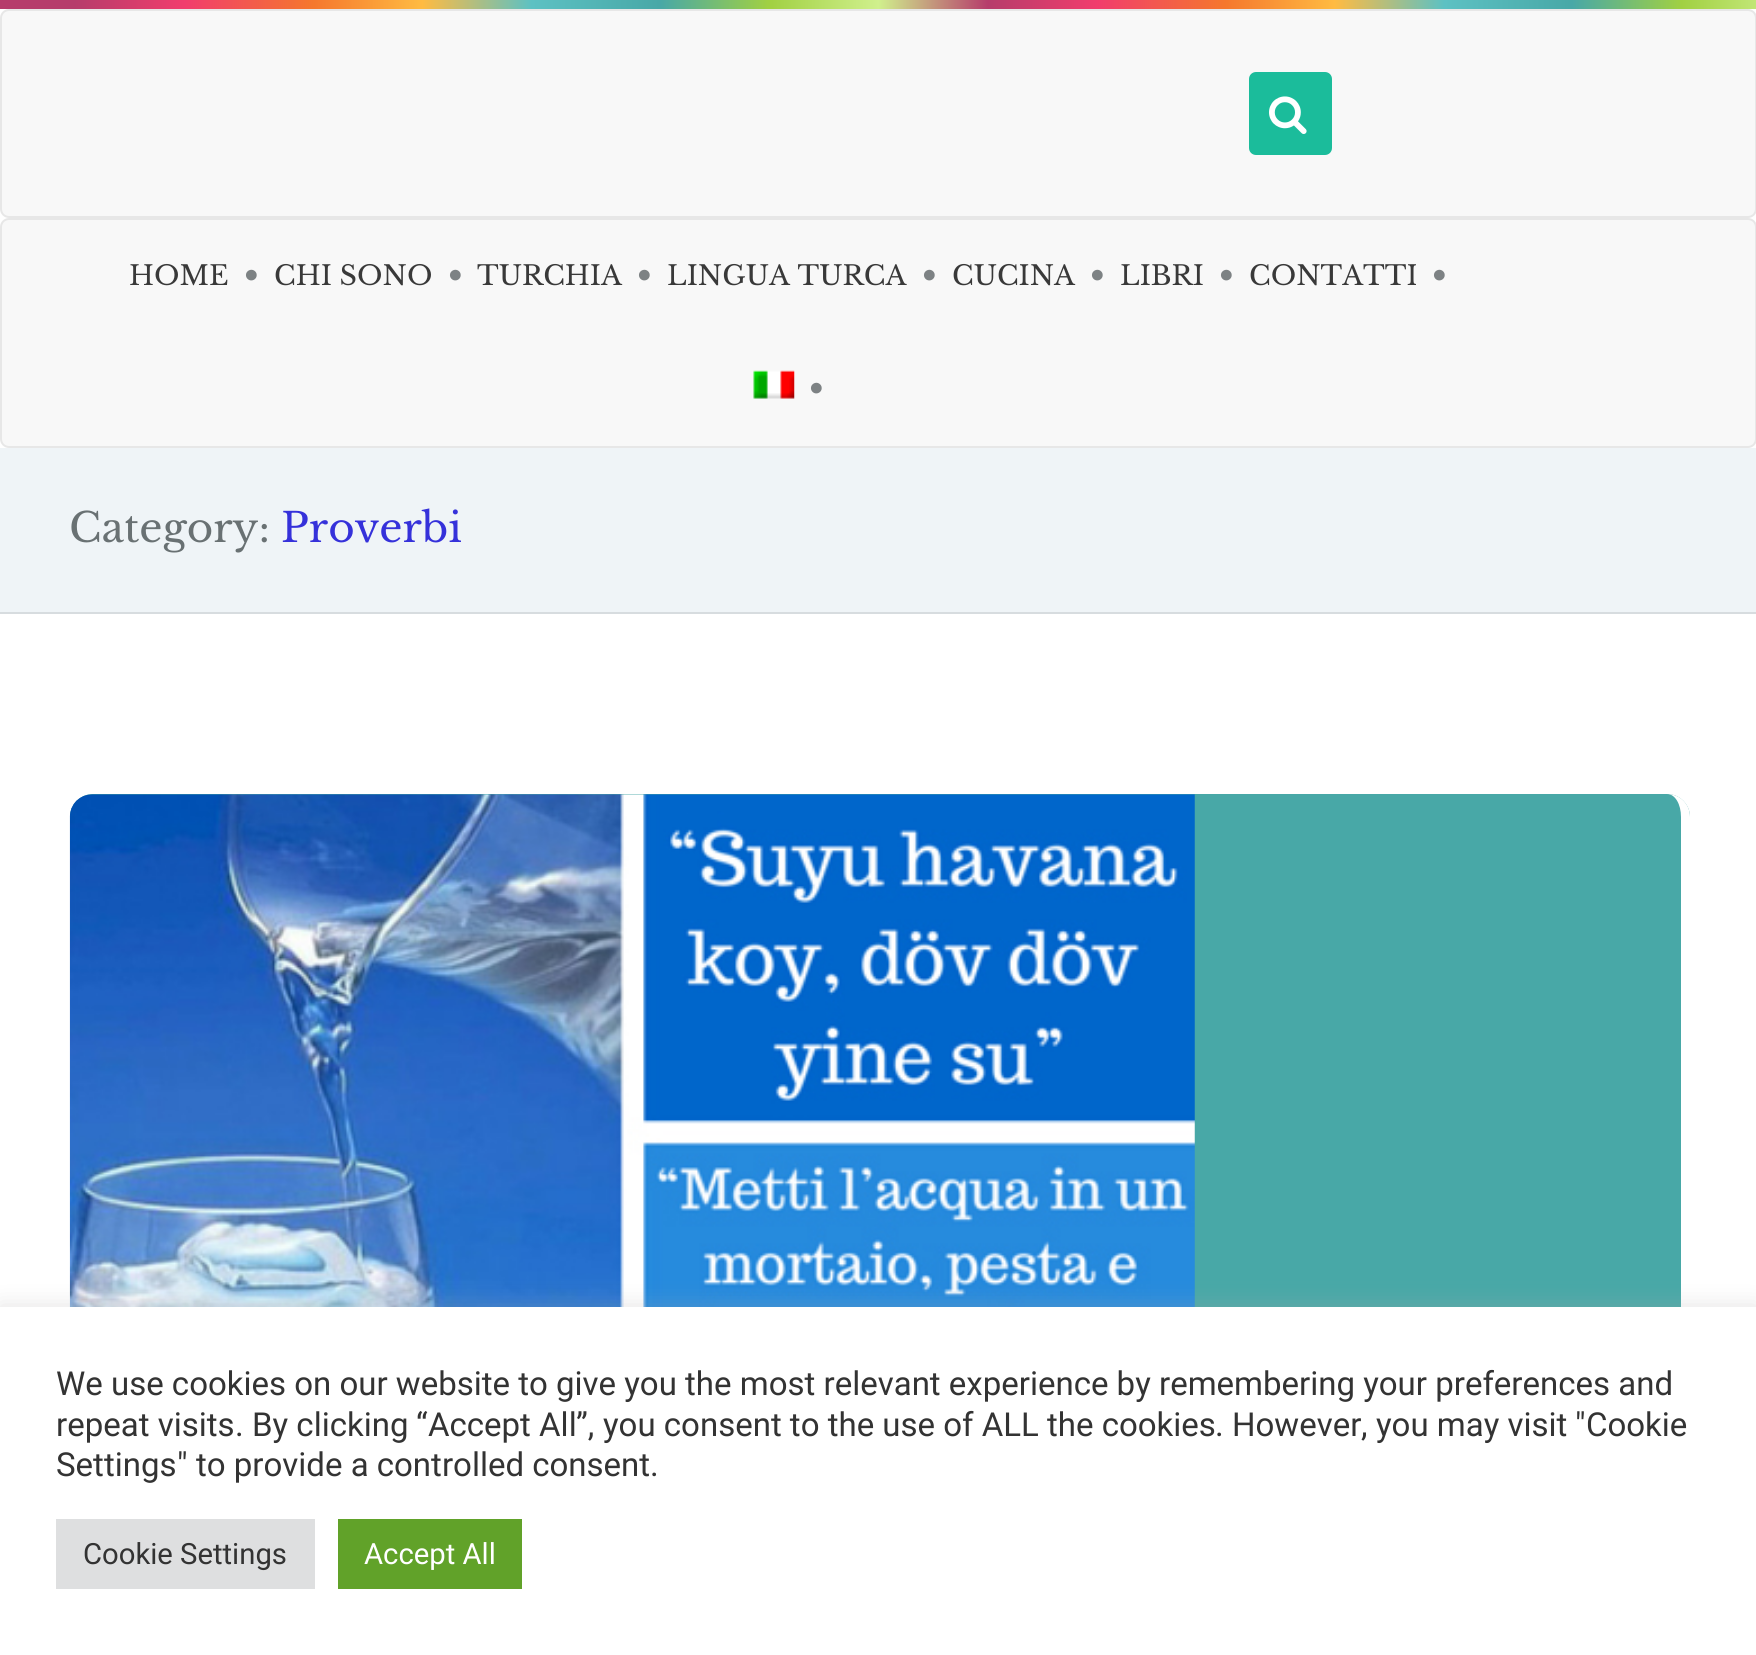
import math
import cairo

surface = cairo.ImageSurface(cairo.FORMAT_RGB24, 1756, 1655)
c = cairo.Context(surface)
options = cairo.FontOptions()
options.set_hint_metrics(cairo.HINT_METRICS_OFF)
options.set_hint_style(cairo.HINT_STYLE_NONE)
c.set_font_options(options)
c.set_miter_limit(4)
def C(code):
 c.set_source_rgb(*(v / 255 for v in bytes.fromhex(code[-6:])))
def F(family, size, italic, bold):
 c.select_font_face(family, cairo.FONT_SLANT_ITALIC if italic else cairo.FONT_SLANT_NORMAL, cairo.FONT_WEIGHT_BOLD if bold else cairo.FONT_WEIGHT_NORMAL)
 c.set_font_size(size)
def T(x, y, s):
 c.move_to(x, y)
 c.show_text(s)
def R(x, y, w, h):
 c.rectangle(x, y, w, h)
 c.fill()
def Q(x, y, w, h, r):
 c.new_sub_path()
 for i, (u, v) in enumerate([(x + w - r, y + h - r), (x + r, y + h - r), (x + r, y + r), (x + w - r, y + r)]):
  c.arc(u, v, r, i * math.pi / 2, (i + 1) * math.pi / 2)
 c.close_path()
def S(x, y, w, h, r, blur, alpha):
 c.push_group_with_content(cairo.CONTENT_ALPHA)
 c.set_operator(cairo.OPERATOR_SOURCE)
 for i in range(15, -16, -2):
  e = blur * i / 6
  if min(w, h) + 2 * e > 0:
   c.set_source_rgba(0, 0, 0, alpha * math.erfc((i - 1) / 8.5) / 2)
   Q(x - e, y - e, w + 2 * e, h + 2 * e, max(0, min(r + e + blur * .6, min(w, h) / 2 + e)))
   c.fill()
 c.mask(c.pop_group())
def I(path, x, y, w, h):
 c.save()
 c.set_source_surface(cairo.ImageSurface.create_from_png(path), x, y)
 c.rectangle(x, y, w, h)
 c.fill()
 c.restore()
C('ffffff')
c.paint()
gradient = cairo.LinearGradient(-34,4.5,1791,4.5)
gradient.add_color_stop_rgba(.06,0.714,0.235,0.42,1)
gradient.add_color_stop_rgba(.12,0.945,0.239,0.427,1)
gradient.add_color_stop_rgba(.19,0.961,0.467,0.176,1)
gradient.add_color_stop_rgba(.25,1,0.733,0.259,1)
gradient.add_color_stop_rgba(.31,0.365,0.757,0.765,1)
gradient.add_color_stop_rgba(.38,0.282,0.659,0.655,1)
gradient.add_color_stop_rgba(.44,0.631,0.816,0.259,1)
gradient.add_color_stop_rgba(.5,0.816,0.941,0.553,1)
gradient.add_color_stop_rgba(.56,0.714,0.235,0.42,1)
gradient.add_color_stop_rgba(.62,0.945,0.239,0.427,1)
gradient.add_color_stop_rgba(.69,0.961,0.467,0.176,1)
gradient.add_color_stop_rgba(.75,1,0.733,0.259,1)
gradient.add_color_stop_rgba(.81,0.365,0.757,0.765,1)
gradient.add_color_stop_rgba(.88,0.282,0.659,0.655,1)
gradient.add_color_stop_rgba(.94,0.631,0.816,0.259,1)
gradient.add_color_stop_rgba(1,0.816,0.941,0.553,1)
c.set_source(gradient)
R(0,0,1756,9)
C('f8f8f8')
Q(1,10,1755,207,8)
c.fill_preserve()
C('e7e7e7')
c.stroke()
C('1bbc9b')
Q(1249,72,83,83,7)
c.fill()
I('1.png',1269,96,38,38)
C('f8f8f8')
Q(1,219,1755,228,8)
c.fill_preserve()
C('e7e7e7')
c.stroke()
F('Libre Baskerville',27,0,0)
C('393939')
T(129,285,'HOME')
F('Libre Baskerville',35,0,0)
C('7d8284')
T(243,288,'•')
F('Libre Baskerville',27,0,0)
C('393939')
T(274,285,'CHI SONO')
F('Libre Baskerville',35,0,0)
C('7d8284')
T(447,288,'•')
F('Libre Baskerville',27,0,0)
C('393939')
T(477,285,'TURCHIA')
F('Libre Baskerville',35,0,0)
C('7d8284')
T(636,288,'•')
F('Libre Baskerville',27,0,0)
C('393939')
T(667,285,'LINGUA TURCA')
F('Libre Baskerville',35,0,0)
C('7d8284')
T(921,288,'•')
F('Libre Baskerville',27,0,0)
C('393939')
T(952,285,'CUCINA')
F('Libre Baskerville',35,0,0)
C('7d8284')
T(1089,288,'•')
F('Libre Baskerville',27,0,0)
C('393939')
T(1120,285,'LIBRI')
F('Libre Baskerville',35,0,0)
C('7d8284')
T(1218,288,'•')
F('Libre Baskerville',27,0,0)
C('393939')
T(1249,285,'CONTATTI')
F('Libre Baskerville',35,0,0)
C('7d8284')
T(1431,288,'•')
I('2.png',753,370,42,29)
T(808,401,'•')
C('eff4f7')
R(0,448,1756,164)
C('d7dcdf')
R(0,612,1756,2)
F('Libre Baskerville',40.5,0,0)
C('697173')
T(69,542,'Category:')
C('3531da')
T(281,542,'Proverbi')
C('48a8a7')
Q(70,794,1620,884,23)
c.fill()
C('ffffff')
c.set_fill_rule(cairo.FILL_RULE_EVEN_ODD)
c.new_path()
c.move_to(92,794)
c.line_to(1667,794)
c.curve_to(1680,794,1690,804,1690,817)
c.line_to(1690,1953)
c.curve_to(1690,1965,1680,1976,1667,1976)
c.line_to(92,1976)
c.curve_to(80,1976,70,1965,70,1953)
c.line_to(70,817)
c.curve_to(70,804,80,794,92,794)
c.close_path()
c.move_to(92,794)
c.line_to(1667,794)
c.curve_to(1675,794,1681,804,1681,817)
c.line_to(1681,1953)
c.curve_to(1681,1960,1675,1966,1667,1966)
c.line_to(92,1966)
c.curve_to(80,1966,70,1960,70,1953)
c.line_to(70,817)
c.curve_to(70,804,80,794,92,794)
c.close_path()
c.fill()
I('3.png',69,794,1126,513)
C('acabab')
S(0,1305,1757,349,0,11,.3)
C('ffffff')
R(0,1307,1756,348)
F('Roboto',33,0,0)
C('333333')
T(56,1395,'We use cookies on our website to give you the most relevant experience by remembering your preferences and')
T(56,1436,'repeat visits')
F('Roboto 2',33,0,0)
T(235,1436,'.')
F('Roboto',33,0,0)
T(252,1436,'By clicking')
F('Roboto 2',33,0,0)
T(416,1436,'“')
F('Roboto',33,0,0)
T(428,1436,'Accept All')
F('Roboto 2',33,0,0)
T(576,1436,'”,')
F('Roboto',33,0,0)
T(603,1436,'you consent to the use of ALL the cookies')
F('Roboto 2',33,0,0)
T(1215,1436,'.')
F('Roboto',33,0,0)
T(1232,1436,'However')
F('Roboto 2',33,0,0)
T(1361,1436,',')
F('Roboto',33,0,0)
T(1376,1436,'you may visit')
F('Roboto 2',33,0,0)
T(1575,1436,'"')
F('Roboto',33,0,0)
T(1586,1436,'Cookie')
T(56,1476,'Settings')
F('Roboto 2',33,0,0)
T(177,1476,'"')
F('Roboto',33,0,0)
T(196,1476,'to provide a controlled consent')
F('Roboto 2',33,0,0)
T(650,1476,'.')
C('dedfe0')
R(56,1519,259,70)
F('Roboto',29.25,0,0)
C('333333')
T(83,1564,'Cookie Settings')
C('61a229')
R(338,1519,184,70)
C('ffffff')
T(364,1564,'Accept All')
surface.write_to_png('o.png')
